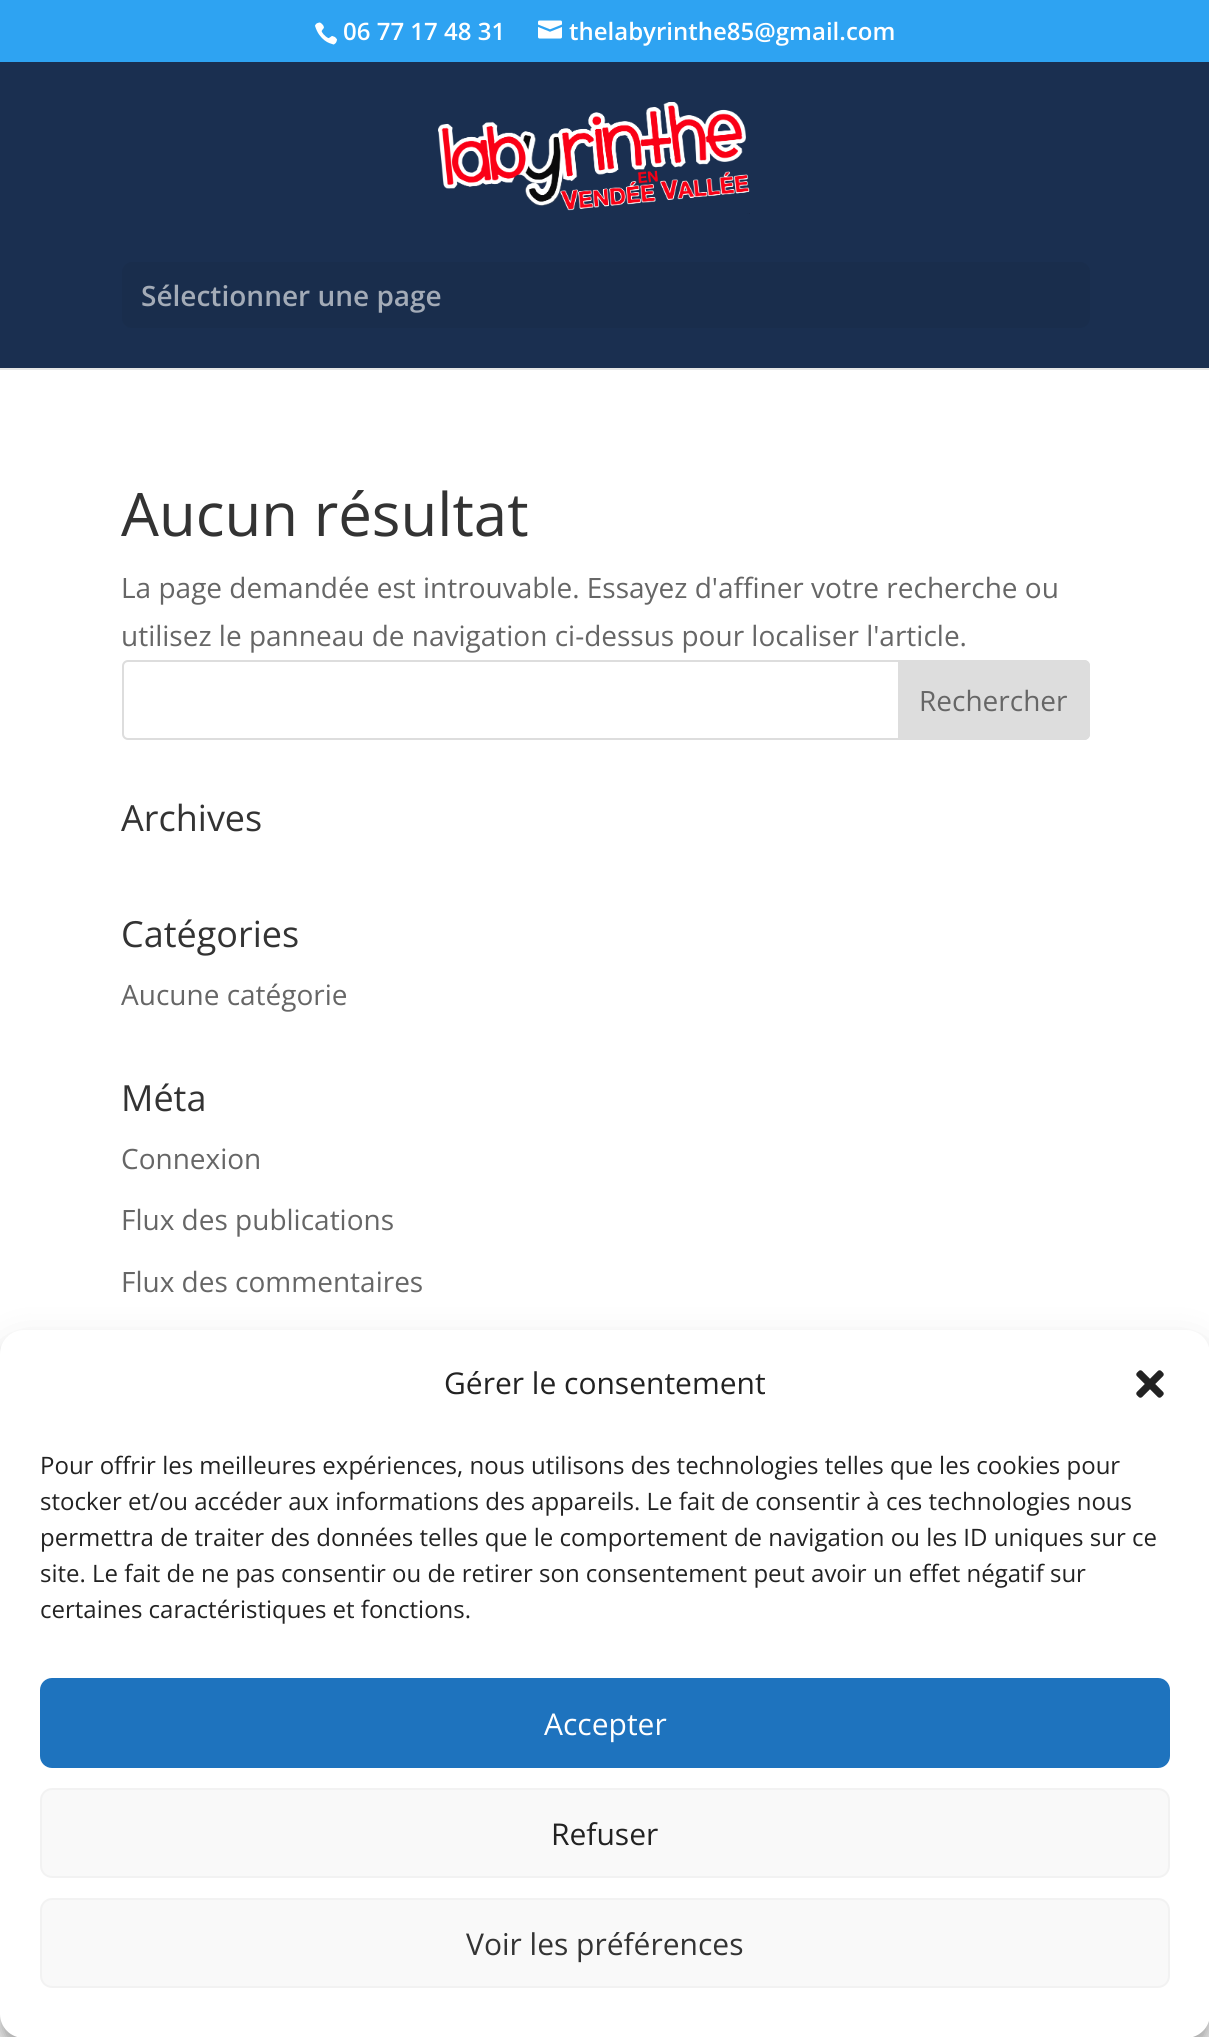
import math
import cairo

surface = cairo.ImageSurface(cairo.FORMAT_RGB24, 1209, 2037)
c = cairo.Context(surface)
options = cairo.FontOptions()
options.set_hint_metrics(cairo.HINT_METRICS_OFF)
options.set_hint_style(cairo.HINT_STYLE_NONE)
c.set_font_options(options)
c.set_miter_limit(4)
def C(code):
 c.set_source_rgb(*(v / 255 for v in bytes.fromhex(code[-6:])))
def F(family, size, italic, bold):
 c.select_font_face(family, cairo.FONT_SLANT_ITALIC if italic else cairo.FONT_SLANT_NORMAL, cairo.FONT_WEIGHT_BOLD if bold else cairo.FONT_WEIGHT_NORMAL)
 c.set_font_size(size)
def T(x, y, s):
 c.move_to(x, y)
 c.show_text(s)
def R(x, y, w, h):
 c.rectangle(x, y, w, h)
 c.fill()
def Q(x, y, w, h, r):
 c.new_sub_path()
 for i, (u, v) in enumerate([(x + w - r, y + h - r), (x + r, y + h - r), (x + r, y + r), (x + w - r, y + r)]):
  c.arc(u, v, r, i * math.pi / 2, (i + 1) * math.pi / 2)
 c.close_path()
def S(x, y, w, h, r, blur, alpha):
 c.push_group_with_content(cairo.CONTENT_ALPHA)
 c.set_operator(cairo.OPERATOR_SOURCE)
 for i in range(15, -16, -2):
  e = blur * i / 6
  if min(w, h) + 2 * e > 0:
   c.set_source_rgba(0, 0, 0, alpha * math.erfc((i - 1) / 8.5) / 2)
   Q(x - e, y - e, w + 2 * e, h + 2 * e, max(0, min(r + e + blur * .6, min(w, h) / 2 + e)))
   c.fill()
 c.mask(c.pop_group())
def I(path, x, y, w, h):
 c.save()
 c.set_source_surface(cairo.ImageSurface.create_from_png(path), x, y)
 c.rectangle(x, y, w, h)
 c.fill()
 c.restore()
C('ffffff')
c.paint()
C('2ea3f2')
R(0,0,1209,62)
I('1.png',315,22,22,23)
F('Open Sans SemiBold',24,0,0)
C('ffffff')
T(343,40,'06 77 17 48 31')
I('2.png',538,20,24,19)
T(569,40,'thelabyrinthe85@gmail.com')
C('e6e6e6')
R(0,368,1209,2)
C('1a2f50')
R(0,62,1209,306)
I('3.png',438,102,312,112)
C('192d4c')
Q(122,262,968,66,10)
c.fill()
F('Open Sans SemiBold',28,0,0)
C('a3abb7')
T(141,306,'Sélectionner une page')
F('Open Sans',60,0,0)
C('333333')
T(121,536,'Aucun résultat')
F('Open Sans',28,0,0)
C('666666')
T(121,598,'La page demandée est introuvable. Essayez d\'affiner votre recherche ou')
T(121,646,'utilisez le panneau de navigation ci-dessus pour localiser l\'article.')
Q(123,661,966,78,5)
C('dddddd')
c.stroke()
c.new_path()
c.move_to(899,661)
c.line_to(1084,661)
c.curve_to(1087,661,1089,663,1089,666)
c.line_to(1089,734)
c.curve_to(1089,737,1087,739,1084,739)
c.line_to(899,739)
c.close_path()
c.fill_preserve()
c.stroke()
C('666666')
T(919,711,'Rechercher')
F('Open Sans',36,0,0)
C('333333')
T(121,831,'Archives')
T(121,947,'Catégories')
F('Open Sans',28,0,0)
C('666666')
T(121,1005,'Aucune catégorie')
F('Open Sans',36,0,0)
C('333333')
T(121,1111,'Méta')
F('Open Sans',28,0,0)
C('666666')
T(121,1169,'Connexion')
T(121,1230,'Flux des publications')
T(121,1292,'Flux des commentaires')
C('000000')
S(0,1342,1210,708,24,6,.23)
S(0,1350,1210,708,24,20,.19)
C('ffffff')
Q(0,1330,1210,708,24)
c.fill()
F('Open Sans',30,0,0)
C('222222')
T(444,1394,'Gérer le consentement')
I('4.png',1136,1370,28,28)
F('Open Sans',24,0,0)
T(40,1474,'Pour offrir les meilleures expériences, nous utilisons des technologies telles que les cookies pour')
T(40,1510,'stocker et/ou accéder aux informations des appareils. Le fait de consentir à ces technologies nous')
T(40,1546,'permettra de traiter des données telles que le comportement de navigation ou les ID uniques sur ce')
T(40,1582,'site. Le fait de ne pas consentir ou de retirer son consentement peut avoir un effet négatif sur')
T(40,1618,'certaines caractéristiques et fonctions.')
C('1e73be')
Q(41,1679,1128,88,11)
c.fill_preserve()
c.stroke()
F('Open Sans',30,0,0)
C('ffffff')
T(544,1735,'Accepter')
C('f9f9f9')
Q(41,1789,1128,88,11)
c.fill_preserve()
C('f2f2f2')
c.stroke()
C('222222')
T(551,1845,'Refuser')
C('f9f9f9')
Q(41,1899,1128,88,11)
c.fill_preserve()
C('f2f2f2')
c.stroke()
C('333333')
T(466,1955,'Voir les préférences')
surface.write_to_png('o.png')
